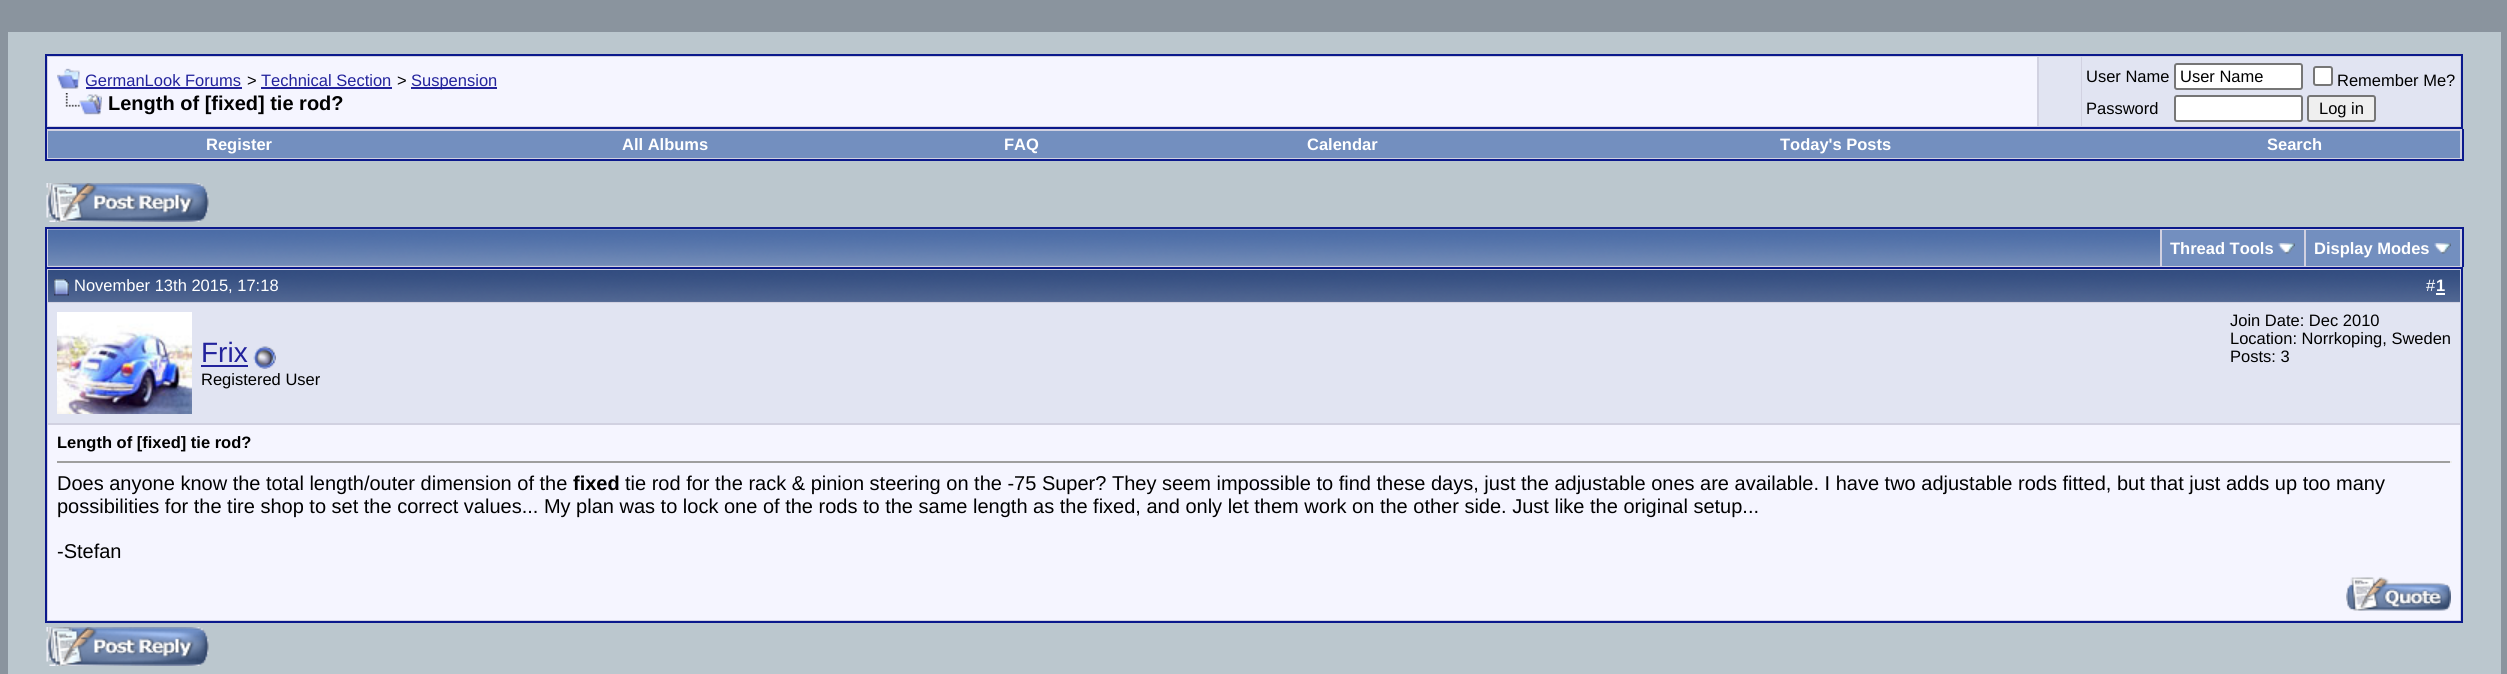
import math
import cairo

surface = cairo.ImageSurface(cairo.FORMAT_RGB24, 2507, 674)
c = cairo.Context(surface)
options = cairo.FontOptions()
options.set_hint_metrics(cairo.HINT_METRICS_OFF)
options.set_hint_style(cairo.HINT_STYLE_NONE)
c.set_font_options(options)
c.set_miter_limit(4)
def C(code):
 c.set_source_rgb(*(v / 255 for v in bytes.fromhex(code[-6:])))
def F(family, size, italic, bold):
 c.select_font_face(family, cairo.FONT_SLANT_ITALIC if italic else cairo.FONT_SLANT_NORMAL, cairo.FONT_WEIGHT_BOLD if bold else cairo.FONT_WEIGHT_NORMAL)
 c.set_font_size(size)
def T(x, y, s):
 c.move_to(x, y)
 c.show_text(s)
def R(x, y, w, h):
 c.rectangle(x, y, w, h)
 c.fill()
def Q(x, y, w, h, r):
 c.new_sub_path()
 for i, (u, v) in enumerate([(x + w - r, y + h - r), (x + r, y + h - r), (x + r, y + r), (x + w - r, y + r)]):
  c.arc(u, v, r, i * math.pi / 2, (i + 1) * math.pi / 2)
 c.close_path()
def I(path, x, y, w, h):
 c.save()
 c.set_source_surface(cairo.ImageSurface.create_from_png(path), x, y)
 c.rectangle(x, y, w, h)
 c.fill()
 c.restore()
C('8a949e')
c.paint()
C('bbc7ce')
R(8,32,2493,642)
C('d1d1e1')
c.rectangle(46,55,2416,73)
c.fill_preserve()
C('0b198c')
c.stroke()
C('f5f5ff')
R(48,57,1989,69)
I('1.png',57,68,23,21)
F('Liberation Sans',16.5,0,0)
C('22229c')
T(85,86,'GermanLook Forums')
R(86,87,156,2)
C('000000')
T(247,86,'>')
C('22229c')
T(261,86,'Technical Section')
R(261,87,131,2)
C('000000')
T(397,86,'>')
C('22229c')
R(411,87,86,2)
T(411,86,'Suspension')
I('2.png',65,93,37,22)
F('Liberation Sans',20,0,1)
C('000000')
T(108,110,'Length of [fixed] tie rod?')
C('e1e4f2')
R(2039,57,42,69)
R(2082,57,378,69)
F('Liberation Sans',16.5,0,0)
C('000000')
T(2086,82,'User Name')
C('ffffff')
Q(2175,64,127,25,2)
c.fill_preserve()
C('767676')
c.stroke()
C('000000')
T(2180,82,'User Name')
C('ffffff')
Q(2314,67,18,18,2)
c.fill_preserve()
C('767676')
c.stroke()
C('000000')
T(2337,86,'Remember Me?')
T(2086,114,'Password')
C('ffffff')
Q(2175,96,127,25,2)
c.fill_preserve()
C('767676')
c.stroke()
C('efefef')
Q(2308,96,67,25,2)
c.fill_preserve()
C('767676')
c.stroke()
C('000000')
T(2319,114,'Log in')
C('d1d1e1')
R(47,129,2415,30)
C('0b198c')
R(2462,129,2,32)
R(45,159,2418,2)
R(45,129,2,32)
C('738fbf')
R(48,131,2412,27)
F('Liberation Sans',16.5,0,1)
C('ffffff')
T(206,150,'Register')
T(622,150,'All Albums')
T(1004,150,'FAQ')
T(1307,150,'Calendar')
T(1780,150,'Today\'s Posts')
T(2267,150,'Search')
I('3.png',46,183,163,39)
C('d1d1e1')
R(47,229,2415,38)
C('0b198c')
R(45,227,2418,2)
R(2462,227,2,40)
R(45,227,2,40)
C('869bbf')
R(48,265,2112,1)
I('4.png',48,229,2112,37)
C('738fbf')
R(2162,230,142,36)
C('ffffff')
T(2170,254,'Thread Tools')
I('5.png',2278,243,17,11)
C('738fbf')
R(2306,230,154,36)
C('ffffff')
T(2314,254,'Display Modes')
I('6.png',2434,243,17,11)
C('d1d1e1')
c.rectangle(46,268,2416,354)
c.fill_preserve()
C('0b198c')
c.stroke()
C('5c7099')
R(48,301,2412,1)
I('7.png',48,270,2412,32)
I('8.png',54,279,15,17)
F('Liberation Sans',16.5,0,0)
C('ffffff')
T(74,291,'November 13th 2015, 17:18')
T(2426,291,'#')
F('Liberation Sans',16.5,0,1)
T(2436,291,'1')
R(2436,293,9,2)
C('e1e4f2')
R(48,303,2412,120)
I('9.png',57,312,135,102)
F('Liberation Sans',28,0,0)
C('22229c')
T(201,362,'Frix')
R(201,365,47,2)
I('10.png',253,346,23,23)
F('Liberation Sans',16.5,0,0)
C('000000')
T(201,385,'Registered User')
T(2230,326,'Join Date: Dec 2010')
T(2230,344,'Location: Norrkoping, Sweden')
T(2230,362,'Posts: 3')
C('f5f5ff')
R(48,425,2412,195)
F('Liberation Sans',16.5,0,1)
C('000000')
T(57,448,'Length of [fixed] tie rod?')
C('9f9f9f')
R(57,461,2394,2)
C('eeeeee')
R(2450,461,2,2)
F('Liberation Sans',20,0,0)
C('000000')
T(57,490,'Does anyone know the total length/outer dimension of the')
F('Liberation Sans',20,0,1)
T(573,490,'fixed')
F('Liberation Sans',20,0,0)
T(625,490,'tie rod for the rack & pinion steering on the -75 Super? They seem impossible to find these days, just the adjustable ones are available. I have two adjustable rods fitted, but that just adds up too many')
T(57,513,'possibilities for the tire shop to set the correct values... My plan was to lock one of the rods to the same length as the fixed, and only let them work on the other side. Just like the original setup...')
T(57,558,'-Stefan')
I('11.png',2346,577,105,34)
I('3.png',46,627,163,39)
surface.write_to_png('o.png')
